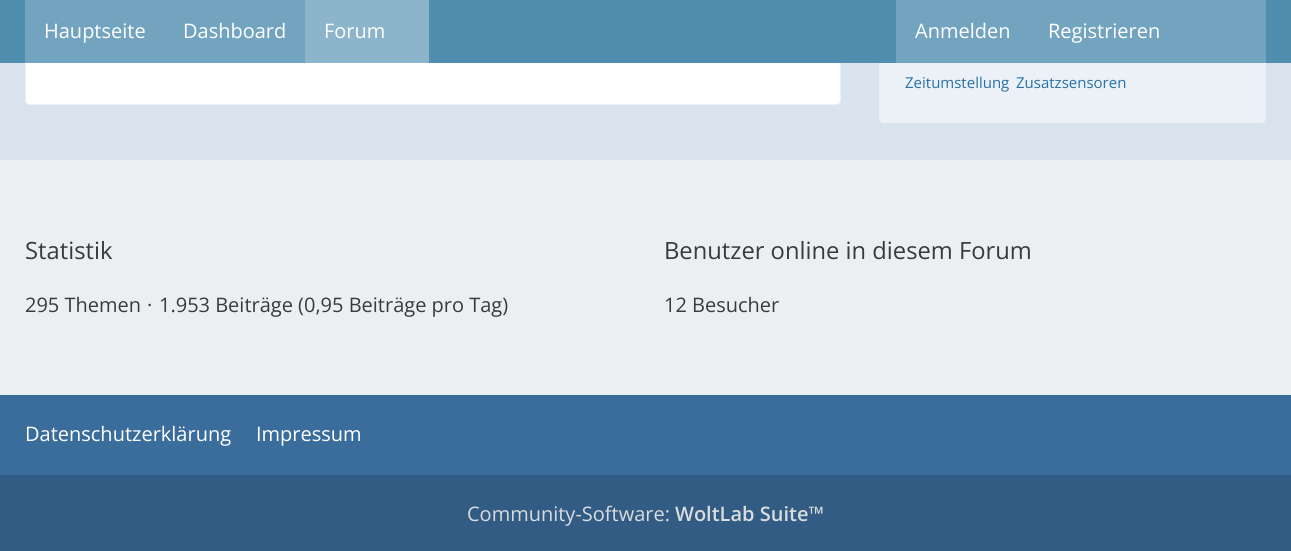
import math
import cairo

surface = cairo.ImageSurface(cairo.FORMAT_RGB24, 1291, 551)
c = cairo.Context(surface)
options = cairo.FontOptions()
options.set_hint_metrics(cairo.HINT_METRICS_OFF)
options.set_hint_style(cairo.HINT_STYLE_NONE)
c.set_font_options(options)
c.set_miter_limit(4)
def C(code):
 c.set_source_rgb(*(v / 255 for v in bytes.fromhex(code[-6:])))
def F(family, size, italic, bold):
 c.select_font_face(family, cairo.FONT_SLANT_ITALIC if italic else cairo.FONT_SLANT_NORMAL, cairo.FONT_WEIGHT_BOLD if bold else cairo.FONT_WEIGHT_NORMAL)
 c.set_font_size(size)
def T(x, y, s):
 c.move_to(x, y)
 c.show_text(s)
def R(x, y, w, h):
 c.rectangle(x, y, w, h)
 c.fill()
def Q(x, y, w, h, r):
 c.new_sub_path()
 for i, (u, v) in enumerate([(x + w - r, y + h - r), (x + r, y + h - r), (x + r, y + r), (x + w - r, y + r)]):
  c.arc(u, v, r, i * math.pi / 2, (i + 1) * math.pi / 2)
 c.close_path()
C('d9e3ee')
c.paint()
C('ffffff')
Q(25.5,-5.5,815,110,4.5)
c.fill_preserve()
C('ecf1f7')
c.set_line_width(1)
c.stroke()
Q(879,-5,387,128,5)
c.fill()
C('508eaf')
R(0,0,1291,63)
C('73a4bf')
R(25,0,280,63)
F('Open Sans',20,0,0)
C('ffffff')
T(44,38,'Hauptseite')
T(183,38,'Dashboard')
C('8cb4ca')
R(305,0,124,63)
C('ffffff')
T(324,38,'Forum')
C('73a4bf')
R(896,0,370,63)
C('ffffff')
T(915,38,'Anmelden')
T(1048,38,'Registrieren')
F('Open Sans',15,0,0)
C('2671a6')
T(905,88,'Zeitumstellung')
T(1016,88,'Zusatzsensoren')
C('eceff1')
R(0,160,1291,235)
F('Open Sans',23.75,0,0)
C('3a3a3d')
T(25,259,'Statistik')
F('Open Sans',20,0,0)
T(25,312,'295 Themen')
T(147,312,'·')
T(159,312,'1.953 Beiträge (0,95 Beiträge pro Tag)')
F('Open Sans',23.75,0,0)
T(664,259,'Benutzer online in diesem Forum')
F('Open Sans',20,0,0)
T(664,312,'12 Besucher')
C('3a6d9c')
R(0,395,1291,80)
C('ffffff')
T(25,441,'Datenschutzerklärung')
T(256,441,'Impressum')
C('325c84')
R(0,475,1291,76)
C('d9dcde')
T(467,521,'Community-Software:')
F('Open Sans SemiBold',20,0,0)
T(675,521,'WoltLab Suite™')
surface.write_to_png('o.png')
